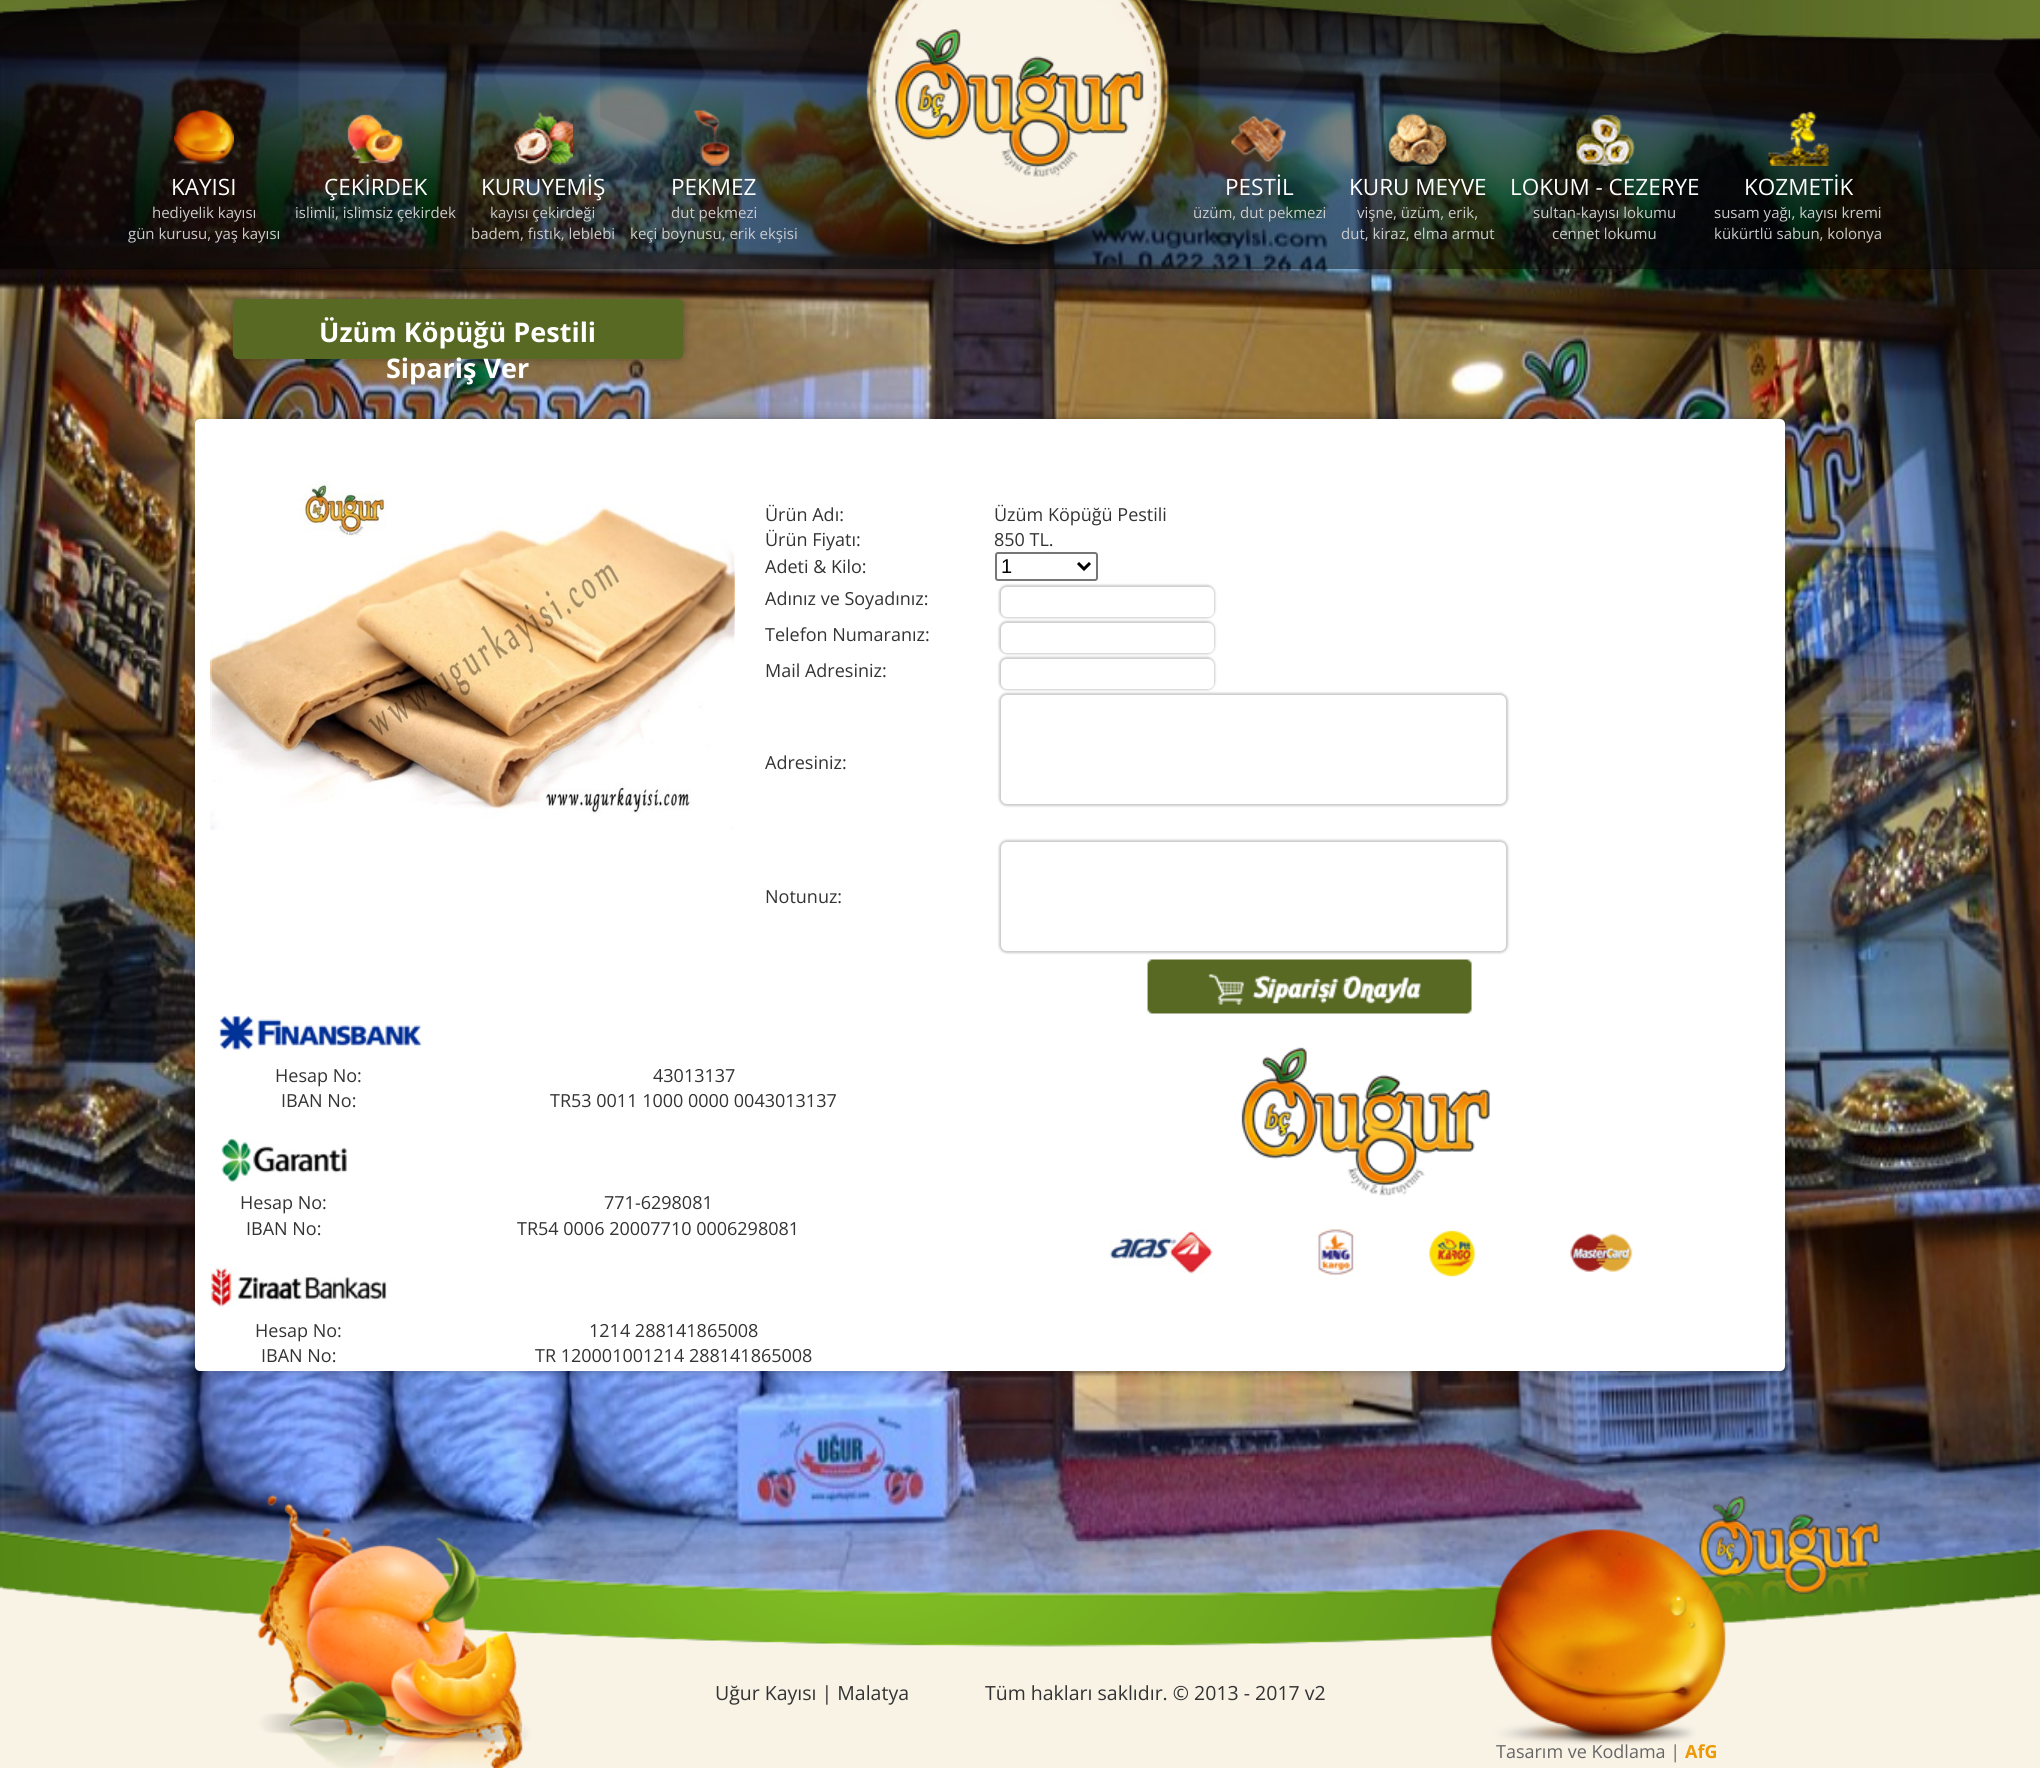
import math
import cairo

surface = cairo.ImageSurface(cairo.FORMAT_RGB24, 2040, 1768)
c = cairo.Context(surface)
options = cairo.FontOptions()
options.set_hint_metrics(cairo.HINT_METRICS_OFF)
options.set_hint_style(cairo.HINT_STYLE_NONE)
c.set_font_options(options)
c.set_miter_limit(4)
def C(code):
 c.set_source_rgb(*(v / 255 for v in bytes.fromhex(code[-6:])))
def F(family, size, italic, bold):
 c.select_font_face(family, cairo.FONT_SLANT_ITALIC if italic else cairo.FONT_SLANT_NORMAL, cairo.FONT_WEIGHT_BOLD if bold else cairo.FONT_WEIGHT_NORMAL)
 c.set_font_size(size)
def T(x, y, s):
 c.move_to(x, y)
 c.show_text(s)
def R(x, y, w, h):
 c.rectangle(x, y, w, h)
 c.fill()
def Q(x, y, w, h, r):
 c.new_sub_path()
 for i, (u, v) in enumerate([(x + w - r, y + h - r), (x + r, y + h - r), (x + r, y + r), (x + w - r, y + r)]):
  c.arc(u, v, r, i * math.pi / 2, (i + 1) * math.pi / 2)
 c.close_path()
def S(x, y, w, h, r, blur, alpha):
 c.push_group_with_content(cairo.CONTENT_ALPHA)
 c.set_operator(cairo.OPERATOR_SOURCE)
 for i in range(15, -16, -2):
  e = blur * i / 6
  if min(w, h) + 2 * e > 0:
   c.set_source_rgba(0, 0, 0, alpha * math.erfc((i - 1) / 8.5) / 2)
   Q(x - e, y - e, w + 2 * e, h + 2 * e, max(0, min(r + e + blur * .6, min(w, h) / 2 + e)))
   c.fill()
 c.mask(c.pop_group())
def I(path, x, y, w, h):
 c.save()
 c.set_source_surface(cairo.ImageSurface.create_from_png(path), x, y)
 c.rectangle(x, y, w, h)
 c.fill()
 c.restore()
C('ffffff')
c.paint()
I('1.png',0,0,2040,1595)
c.set_source_rgba(0,0,0,0.5)
R(0,0,2040,269)
I('2.png',0,0,2040,268)
I('3.png',0,0,2040,263)
I('4.png',895,29,249,148)
I('5.png',174,110,60,55)
F('Open Sans',22.5,0,0)
C('ffffff')
T(171,195,'KAYISI')
F('Open Sans',15,0,0)
C('cccccc')
T(152,218,'hediyelik kayısı')
T(128,239,'gün kurusu, yaş kayısı')
I('6.png',347,114,56,50)
F('Open Sans',22.5,0,0)
C('ffffff')
T(324,195,'ÇEKİRDEK')
F('Open Sans',15,0,0)
C('cccccc')
T(295,218,'islimli, islimsiz çekirdek')
I('7.png',513,112,60,53)
F('Open Sans',22.5,0,0)
C('ffffff')
T(481,195,'KURUYEMİŞ')
F('Open Sans',15,0,0)
C('cccccc')
T(490,218,'kayısı çekirdeği')
T(471,239,'badem, fıstık, leblebi')
I('8.png',693,110,37,56)
F('Open Sans',22.5,0,0)
C('ffffff')
T(671,195,'PEKMEZ')
F('Open Sans',15,0,0)
C('cccccc')
T(671,218,'dut pekmezi')
T(630,239,'keçi boynusu, erik ekşisi')
I('9.png',1231,116,55,46)
F('Open Sans',22.5,0,0)
C('ffffff')
T(1225,195,'PESTİL')
F('Open Sans',15,0,0)
C('cccccc')
T(1193,218,'üzüm, dut pekmezi')
I('10.png',1387,113,61,53)
F('Open Sans',22.5,0,0)
C('ffffff')
T(1349,195,'KURU MEYVE')
F('Open Sans',15,0,0)
C('cccccc')
T(1357,218,'vişne, üzüm, erik,')
T(1341,239,'dut, kiraz, elma armut')
I('11.png',1575,114,60,52)
F('Open Sans',22.5,0,0)
C('ffffff')
T(1510,195,'LOKUM - CEZERYE')
F('Open Sans',15,0,0)
C('cccccc')
T(1533,218,'sultan-kayısı lokumu')
T(1552,239,'cennet lokumu')
I('12.png',1768,111,61,55)
F('Open Sans',22.5,0,0)
C('ffffff')
T(1744,195,'KOZMETİK')
F('Open Sans',15,0,0)
C('cccccc')
T(1714,218,'susam yağı, kayısı kremi')
T(1714,239,'kükürtlü sabun, kolonya')
C('000000')
S(239,305,438,48,0,7,1)
C('586923')
Q(233,299,450,60,5)
c.fill()
F('Open Sans',27,0,1)
C('ffffff')
T(319,342,'Üzüm Köpüğü Pestili')
T(386,378,'Sipariş Ver')
C('000000')
S(201,425,1578,940,0,7,1)
C('ffffff')
Q(195,419,1590,952,5)
c.fill()
I('13.png',210,481,525,350)
F('Open Sans',18,0,0)
C('333333')
T(765,521,'Ürün Adı:')
T(994,521,'Üzüm Köpüğü Pestili')
T(765,546,'Ürün Fiyatı:')
T(994,546,'850 TL.')
T(765,573,'Adeti & Kilo:')
Q(996,553,101,27,2)
C('767676')
c.stroke()
c.new_path()
c.move_to(1078,563)
c.line_to(1084,569)
c.line_to(1090,563)
C('000000')
c.set_line_width(3)
c.stroke()
F('Liberation Sans',20,0,0)
T(1001,573,'1')
F('Open Sans',18,0,0)
C('333333')
T(765,605,'Adınız ve Soyadınız:')
C('cccccc')
S(999,585,216,33,8,1,1)
C('ffffff')
Q(1002,588,211,28,5)
c.fill_preserve()
c.set_line_width(2)
c.stroke()
C('333333')
T(765,641,'Telefon Numaranız:')
C('cccccc')
S(999,621,216,33,8,1,1)
C('ffffff')
Q(1002,624,211,28,5)
c.fill_preserve()
c.stroke()
C('333333')
T(765,677,'Mail Adresiniz:')
C('cccccc')
S(999,657,216,33,8,1,1)
C('ffffff')
Q(1002,660,211,28,5)
c.fill_preserve()
c.stroke()
C('333333')
T(765,769,'Adresiniz:')
C('cccccc')
S(999,693,509,113,8,1,1)
C('ffffff')
Q(1002,696,503,107,5)
c.fill_preserve()
c.stroke()
C('333333')
T(765,903,'Notunuz:')
C('cccccc')
S(999,840,509,113,8,1,1)
C('ffffff')
Q(1002,843,503,107,5)
c.fill_preserve()
c.stroke()
I('14.png',1147,959,325,55)
I('15.png',213,1015,209,35)
C('333333')
T(275,1082,'Hesap No:')
T(653,1082,'43013137')
T(281,1107,'IBAN No:')
T(550,1107,'TR53 0011 1000 0000 0043013137')
I('16.png',221,1138,126,44)
T(240,1209,'Hesap No:')
T(604,1209,'771-6298081')
T(246,1235,'IBAN No:')
T(517,1235,'TR54 0006 20007710 0006298081')
I('17.png',210,1266,177,41)
T(255,1337,'Hesap No:')
T(589,1337,'1214 288141865008')
T(261,1362,'IBAN No:')
T(535,1362,'TR 120001001214 288141865008')
I('18.png',1109,1047,524,230)
I('19.png',0,1494,2040,274)
F('Open Sans',19.5,0,0)
T(715,1700,'Uğur Kayısı | Malatya               Tüm hakları saklıdır. © 2013 - 2017 v2')
F('Open Sans',18,0,0)
C('666666')
T(1496,1758,'Tasarım ve Kodlama |')
F('Open Sans',18,0,1)
C('ec9906')
T(1685,1758,'AfG')
surface.write_to_png('o.png')
